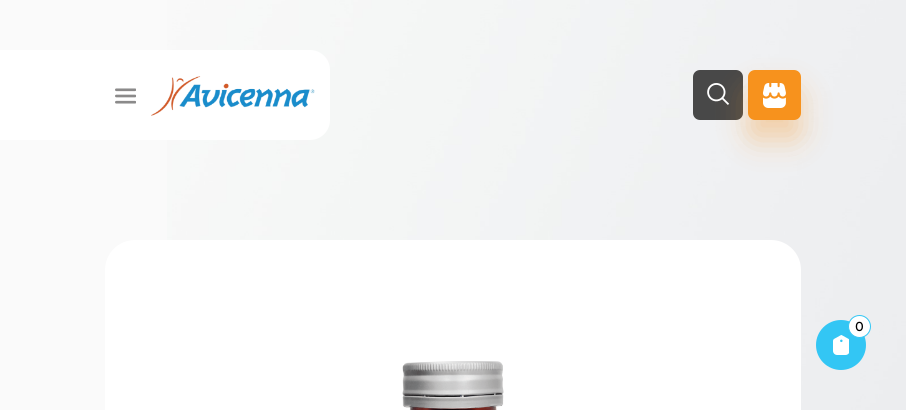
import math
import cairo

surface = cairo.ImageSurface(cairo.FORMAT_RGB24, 906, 410)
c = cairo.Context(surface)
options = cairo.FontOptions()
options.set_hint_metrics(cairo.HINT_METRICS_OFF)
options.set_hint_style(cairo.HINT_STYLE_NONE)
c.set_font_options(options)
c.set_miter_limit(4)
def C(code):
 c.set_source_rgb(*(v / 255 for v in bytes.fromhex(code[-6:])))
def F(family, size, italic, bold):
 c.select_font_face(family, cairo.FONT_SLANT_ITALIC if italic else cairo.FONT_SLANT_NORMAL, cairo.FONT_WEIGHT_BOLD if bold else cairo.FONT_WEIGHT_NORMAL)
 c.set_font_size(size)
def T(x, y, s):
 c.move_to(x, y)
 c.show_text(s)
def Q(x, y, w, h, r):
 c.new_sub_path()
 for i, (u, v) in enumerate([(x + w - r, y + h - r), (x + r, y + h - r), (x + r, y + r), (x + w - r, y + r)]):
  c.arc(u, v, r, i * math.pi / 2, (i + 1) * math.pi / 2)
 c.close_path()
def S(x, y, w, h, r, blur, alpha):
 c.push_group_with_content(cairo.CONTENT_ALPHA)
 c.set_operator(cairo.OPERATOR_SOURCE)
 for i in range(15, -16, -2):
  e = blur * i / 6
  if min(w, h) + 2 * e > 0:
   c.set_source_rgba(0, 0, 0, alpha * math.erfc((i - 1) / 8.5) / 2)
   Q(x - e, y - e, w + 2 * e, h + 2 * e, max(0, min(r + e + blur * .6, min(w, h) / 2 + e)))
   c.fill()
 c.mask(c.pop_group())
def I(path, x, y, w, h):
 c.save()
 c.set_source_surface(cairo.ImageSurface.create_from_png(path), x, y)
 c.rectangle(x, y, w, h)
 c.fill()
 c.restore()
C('fafafa')
c.paint()
I('1.png',167,0,739,410)
C('ffffff')
Q(-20,50,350,90,20)
c.fill()
I('2.png',115,88,21,16)
I('3.png',151,76,164,40)
C('484848')
Q(693,70,50,50,7)
c.fill()
C('f7921d')
S(748,90,53,50,7,15,.35)
C('f7921d')
Q(748,70,53,50,7)
c.fill()
I('4.png',763,83,23,25)
I('5.png',707,83,23,22)
C('ffffff')
Q(105,240,696,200,30)
c.fill()
I('6.png',402,361,102,49)
C('33c6f4')
c.arc(841,345,25,0,2 * math.pi)
c.fill()
I('7.png',833,335,16,20)
C('ffffff')
c.arc(859.5,326.5,11,0,2 * math.pi)
c.fill_preserve()
C('33c6f4')
c.set_line_width(1)
c.stroke()
F('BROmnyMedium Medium',13,0,0)
C('000000')
T(855,331,'0')
surface.write_to_png('o.png')
